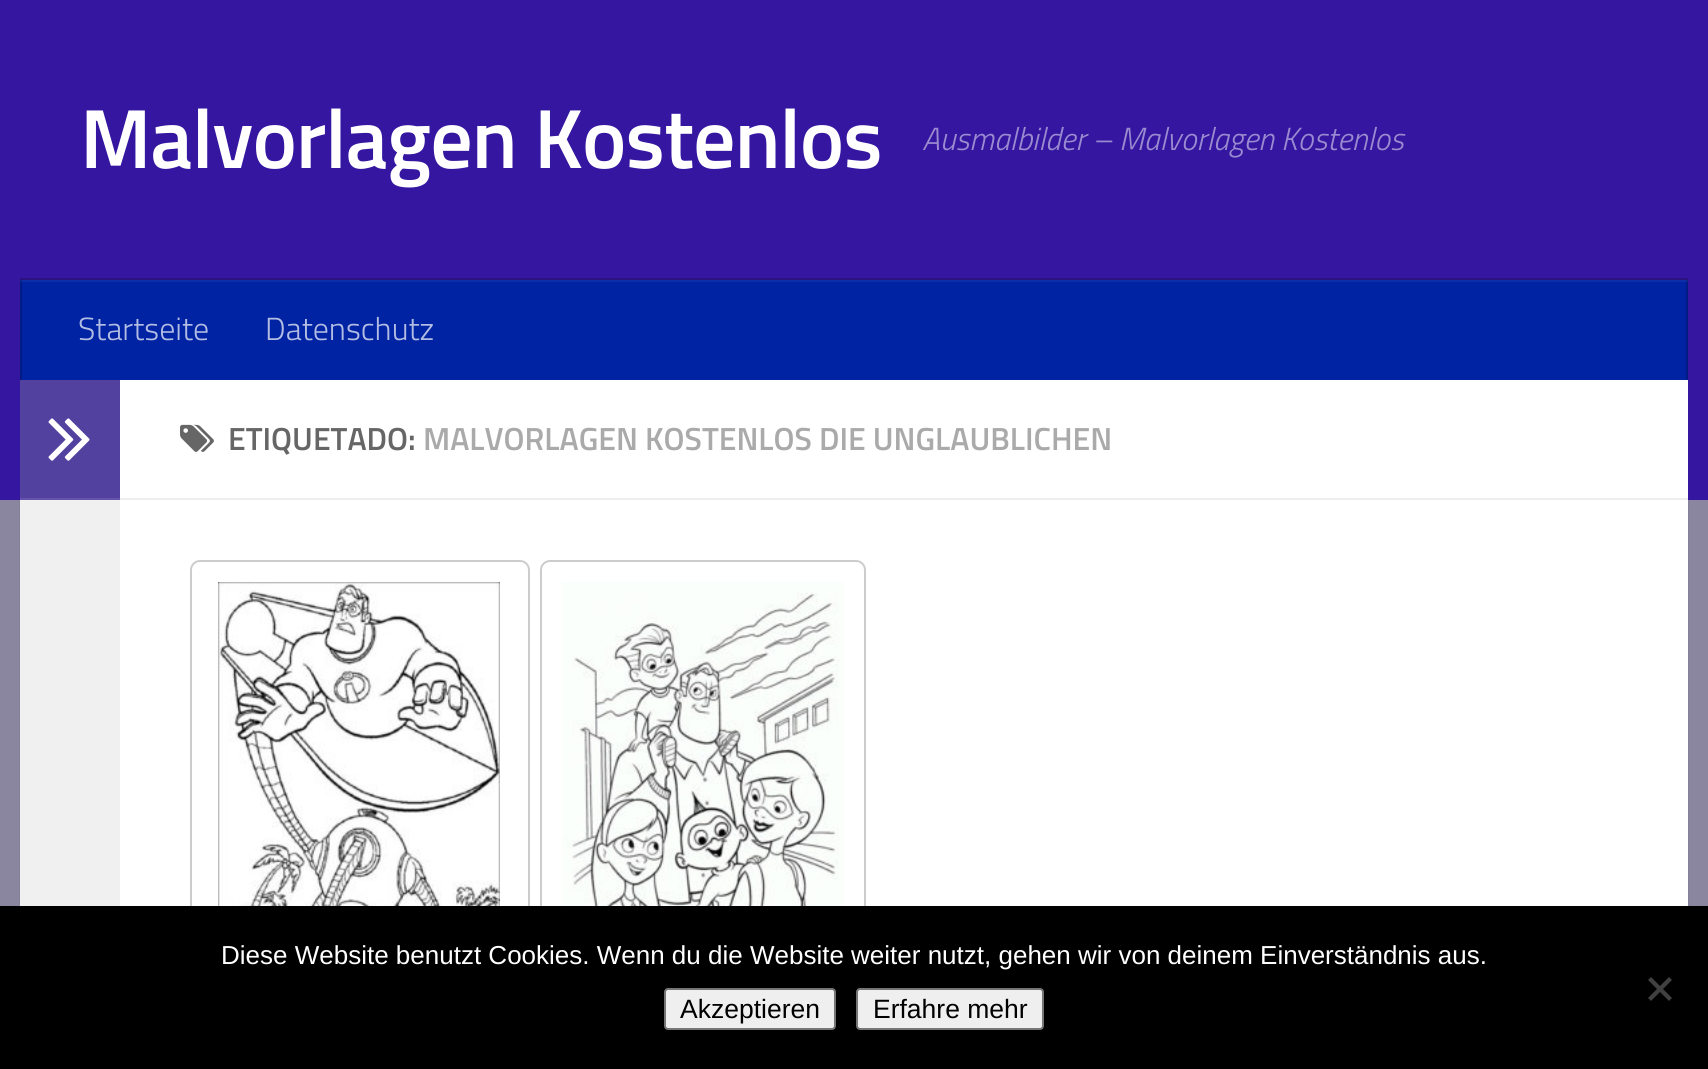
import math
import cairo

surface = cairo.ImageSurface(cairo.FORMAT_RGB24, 1708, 1069)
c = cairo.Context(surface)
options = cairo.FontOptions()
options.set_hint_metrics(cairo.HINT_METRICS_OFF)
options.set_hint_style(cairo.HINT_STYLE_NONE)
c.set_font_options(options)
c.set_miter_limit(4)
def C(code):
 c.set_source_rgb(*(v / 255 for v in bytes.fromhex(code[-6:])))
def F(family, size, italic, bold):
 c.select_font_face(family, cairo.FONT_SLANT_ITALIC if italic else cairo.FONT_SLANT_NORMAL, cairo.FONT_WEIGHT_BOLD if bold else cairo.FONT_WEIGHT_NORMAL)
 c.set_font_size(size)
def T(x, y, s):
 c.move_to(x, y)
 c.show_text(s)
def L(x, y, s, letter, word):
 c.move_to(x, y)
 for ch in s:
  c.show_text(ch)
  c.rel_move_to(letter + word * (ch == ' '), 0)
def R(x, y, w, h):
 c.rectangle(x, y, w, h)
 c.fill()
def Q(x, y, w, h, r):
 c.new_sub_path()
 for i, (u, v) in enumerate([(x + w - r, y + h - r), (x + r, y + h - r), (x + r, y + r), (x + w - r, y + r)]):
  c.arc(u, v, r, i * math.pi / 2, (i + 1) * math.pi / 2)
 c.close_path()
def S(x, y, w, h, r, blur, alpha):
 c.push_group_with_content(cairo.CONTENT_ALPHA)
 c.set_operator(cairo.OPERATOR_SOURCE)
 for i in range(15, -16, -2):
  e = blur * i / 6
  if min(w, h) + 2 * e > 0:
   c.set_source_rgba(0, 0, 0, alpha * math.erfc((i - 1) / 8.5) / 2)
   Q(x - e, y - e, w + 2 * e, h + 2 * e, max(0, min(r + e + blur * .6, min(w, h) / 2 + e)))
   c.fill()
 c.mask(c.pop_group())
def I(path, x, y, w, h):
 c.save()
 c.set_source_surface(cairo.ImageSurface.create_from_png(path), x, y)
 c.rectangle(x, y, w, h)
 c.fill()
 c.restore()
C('8b86a0')
c.paint()
C('000000')
S(20,382,1668,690,0,1,.1)
C('3416a0')
R(0,0,1708,500)
F('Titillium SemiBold',84,0,0)
C('ffffff')
L(80,168,'Malvorlagen Kostenlos',-1,0)
F('Titillium Light',32,1,0)
C('9a8bd0')
T(922,150,'Ausmalbilder – Malvorlagen Kostenlos')
C('2a1280')
R(20,278,1668,2)
C('0023a3')
R(22,282,1664,98)
C('0d2ea8')
R(20,280,1668,2)
C('001c82')
R(1686,280,2,100)
C('0d2788')
R(1686,280,2,2)
C('001c82')
R(20,280,2,100)
C('0d2788')
R(20,280,2,2)
F('Titillium Light',32,0,0)
C('b3bde3')
T(78,340,'Startseite')
T(265,340,'Datenschutz')
C('ffffff')
R(120,380,1568,526)
C('f0f0f0')
R(20,500,100,406)
C('5341a0')
R(20,380,100,118)
C('6454aa')
R(20,498,100,2)
I('1.png',48,418,42,43)
C('eeeeee')
R(120,498,1568,2)
I('2.png',180,424,34,28)
F('Titillium SemiBold',32,0,0)
C('666666')
T(228,450,'ETIQUETADO:')
C('aaaaaa')
T(423,450,'MALVORLAGEN KOSTENLOS DIE UNGLAUBLICHEN')
Q(191,561,338,504,9)
C('cccccc')
c.stroke()
I('3.png',218,582,282,324)
Q(541,561,324,504,9)
c.stroke()
I('4.png',562,582,282,324)
C('000000')
R(0,906,1708,163)
F('Liberation Sans',26,0,0)
C('ffffff')
T(221,964,'Diese Website benutzt Cookies. Wenn du die Website weiter nutzt, gehen wir von deinem Einverständnis aus.')
C('404040')
c.new_path()
c.move_to(1669,977)
c.line_to(1672,980)
c.line_to(1651,1001)
c.line_to(1648,998)
c.close_path()
c.fill()
c.new_path()
c.move_to(1648,980)
c.line_to(1651,977)
c.line_to(1672,998)
c.line_to(1669,1001)
c.close_path()
c.fill()
C('efefef')
Q(665,989,170,40,3)
c.fill_preserve()
C('767676')
c.stroke()
F('Liberation Sans',26.5,0,0)
C('000000')
T(680,1018,'Akzeptieren')
C('efefef')
Q(857,989,186,40,3)
c.fill_preserve()
C('767676')
c.stroke()
C('000000')
T(873,1018,'Erfahre mehr')
surface.write_to_png('o.png')
